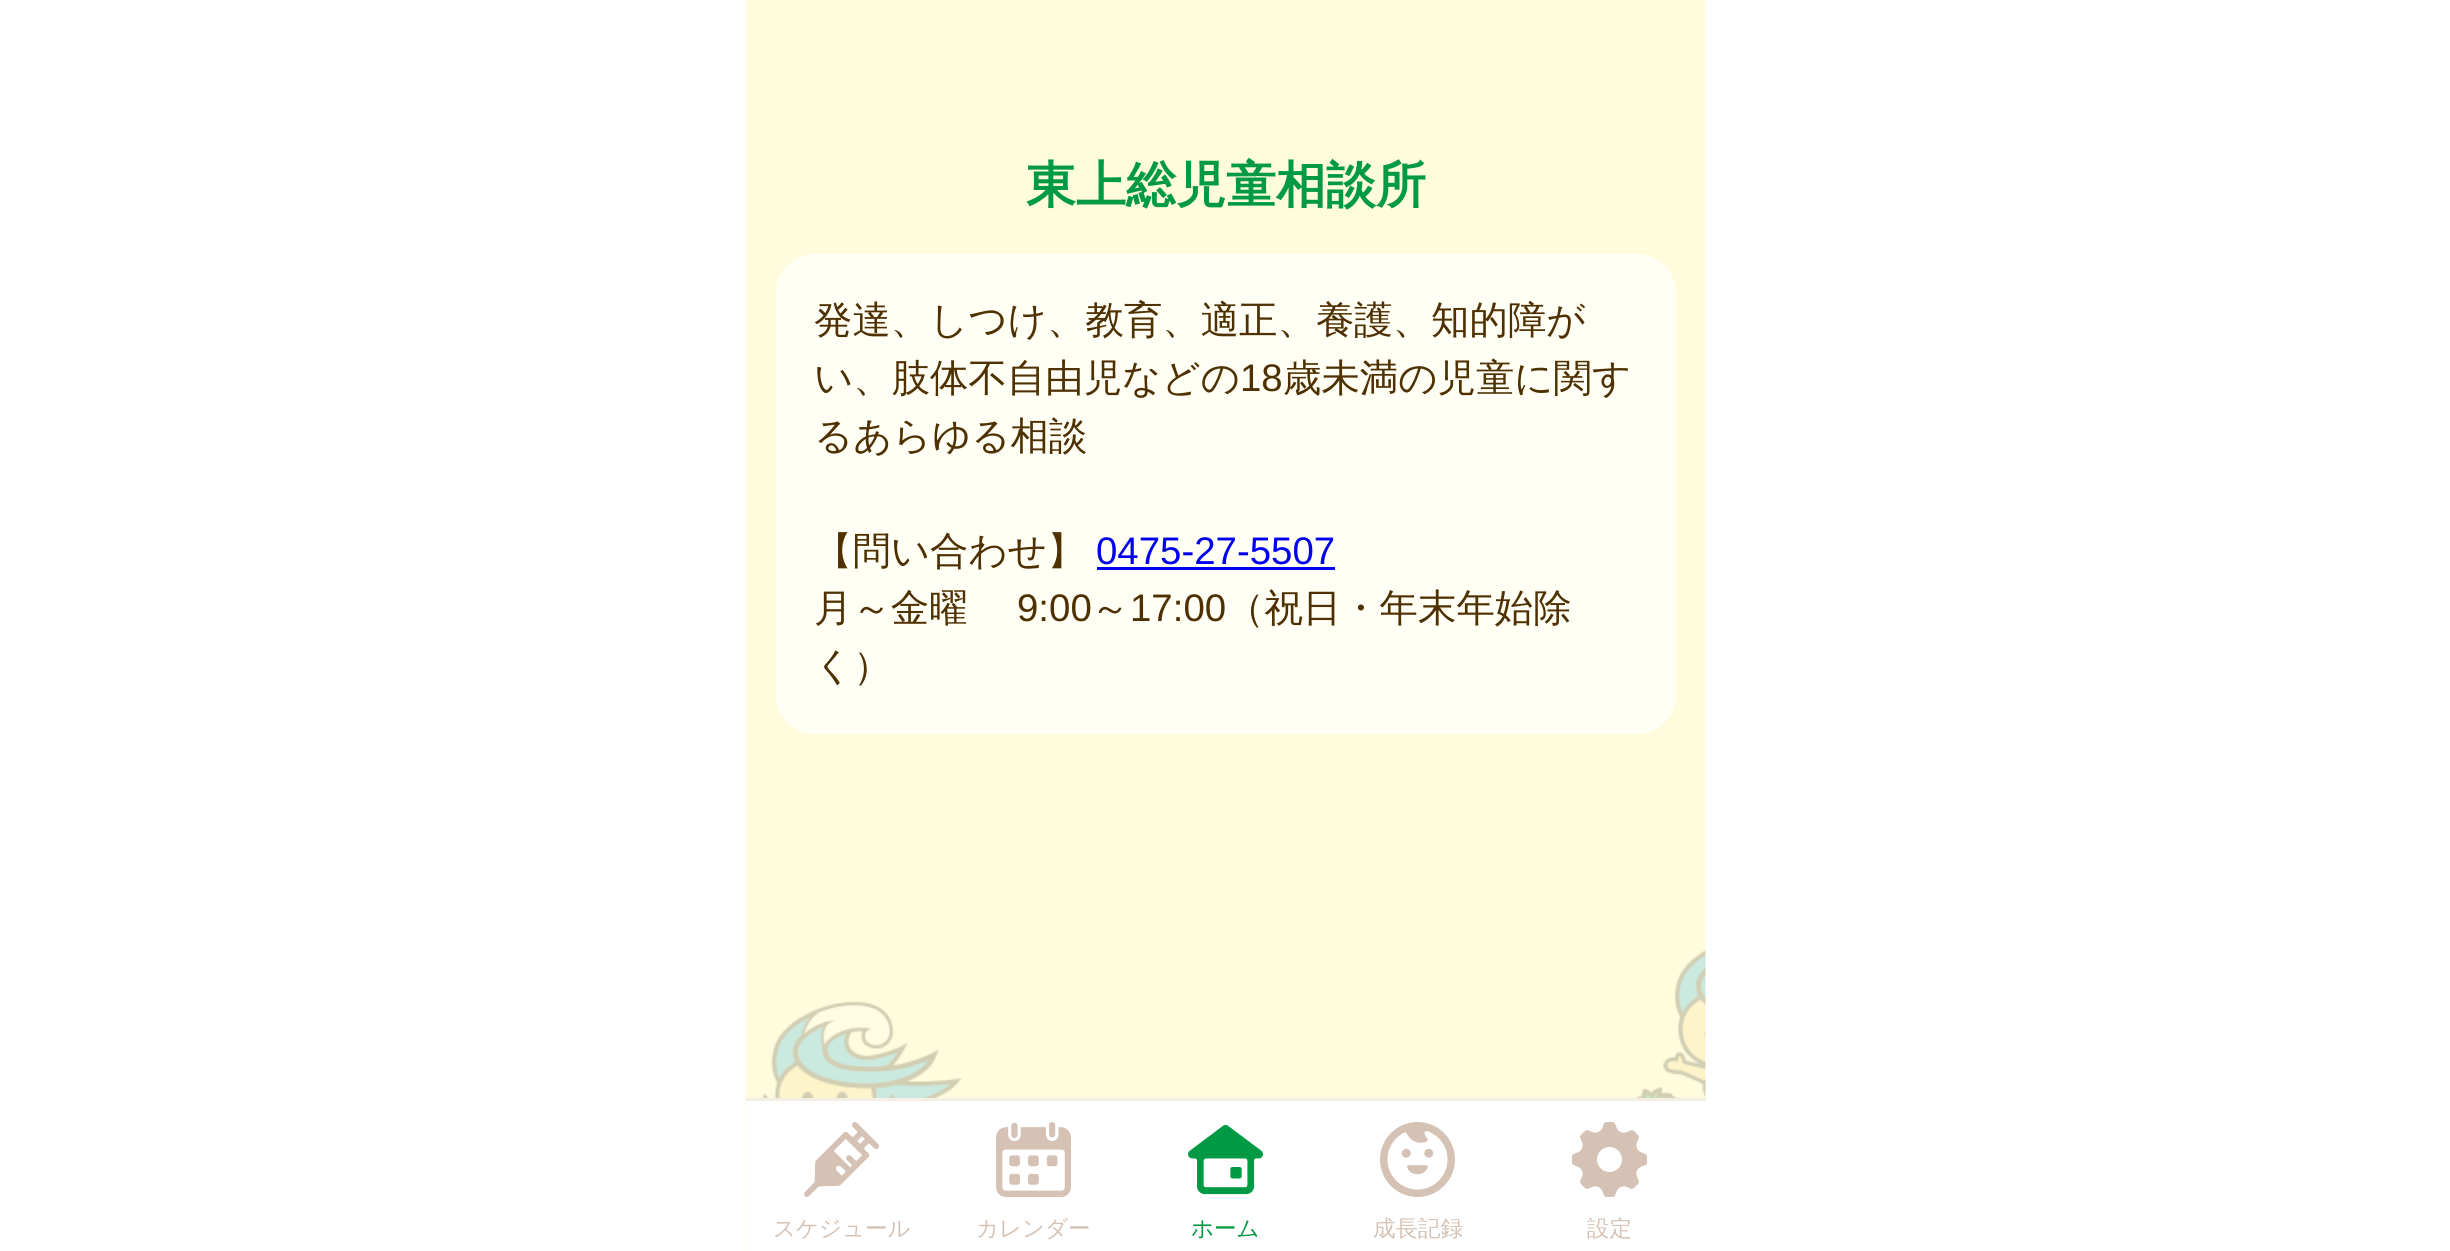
import math
import cairo

surface = cairo.ImageSurface(cairo.FORMAT_RGB24, 2450, 1251)
c = cairo.Context(surface)
options = cairo.FontOptions()
options.set_hint_metrics(cairo.HINT_METRICS_OFF)
options.set_hint_style(cairo.HINT_STYLE_NONE)
c.set_font_options(options)
c.set_miter_limit(4)
def C(code):
 c.set_source_rgb(*(v / 255 for v in bytes.fromhex(code[-6:])))
def F(family, size, italic, bold):
 c.select_font_face(family, cairo.FONT_SLANT_ITALIC if italic else cairo.FONT_SLANT_NORMAL, cairo.FONT_WEIGHT_BOLD if bold else cairo.FONT_WEIGHT_NORMAL)
 c.set_font_size(size)
def T(x, y, s):
 c.move_to(x, y)
 c.show_text(s)
def R(x, y, w, h):
 c.rectangle(x, y, w, h)
 c.fill()
def Q(x, y, w, h, r):
 c.new_sub_path()
 for i, (u, v) in enumerate([(x + w - r, y + h - r), (x + r, y + h - r), (x + r, y + r), (x + w - r, y + r)]):
  c.arc(u, v, r, i * math.pi / 2, (i + 1) * math.pi / 2)
 c.close_path()
def I(path, x, y, w, h):
 c.save()
 c.set_source_surface(cairo.ImageSurface.create_from_png(path), x, y)
 c.rectangle(x, y, w, h)
 c.fill()
 c.restore()
C('ffffff')
c.paint()
I('1.png',745,0,961,1251)
F('WenQuanYi Zen Hei',50,0,1)
C('009944')
T(1026,202,'東上総児童相談所')
C('fffff5')
Q(776,254,900,480,39)
c.fill()
F('WenQuanYi Zen Hei Medium',38.4,0,0)
C('4f3000')
T(814,333,'発達、しつけ、教育、適正、養護、知的障が')
T(814,391,'い、肢体不自由児などの')
F('Liberation Sans',38.4,0,0)
T(1240,391,'18')
F('WenQuanYi Zen Hei Medium',38.4,0,0)
T(1283,391,'歳未満の児童に関す')
T(814,449,'るあらゆる相談')
T(814,564,'【問い合わせ】')
F('Liberation Sans',38.4,0,0)
C('0000ee')
T(1096,564,'0475-27-5507')
R(1097,567,238,3)
F('WenQuanYi Zen Hei Medium',38.4,0,0)
C('4f3000')
T(814,621,'月～金曜')
F('Liberation Sans',38.4,0,0)
T(1017,621,'9:00')
F('WenQuanYi Zen Hei Medium',38.4,0,0)
T(1091,621,'～')
F('Liberation Sans',38.4,0,0)
T(1130,621,'17:00')
F('WenQuanYi Zen Hei Medium',38.4,0,0)
T(1226,621,'（祝日・年末年始除')
T(814,679,'く）')
C('f5eee5')
R(746,1098,960,3)
C('ffffff')
R(746,1101,960,150)
I('2.png',804,1122,75,75)
F('WenQuanYi Zen Hei Medium',22.5,0,0)
C('d5c2b4')
T(773,1236,'スケジュール')
I('3.png',996,1122,75,75)
T(976,1236,'カレンダー')
I('4.png',1188,1124,75,71)
C('009944')
T(1191,1236,'ホーム')
I('5.png',1380,1122,75,75)
C('d5c2b4')
T(1373,1236,'成長記録')
I('6.png',1572,1122,75,75)
T(1587,1236,'設定')
surface.write_to_png('o.png')
